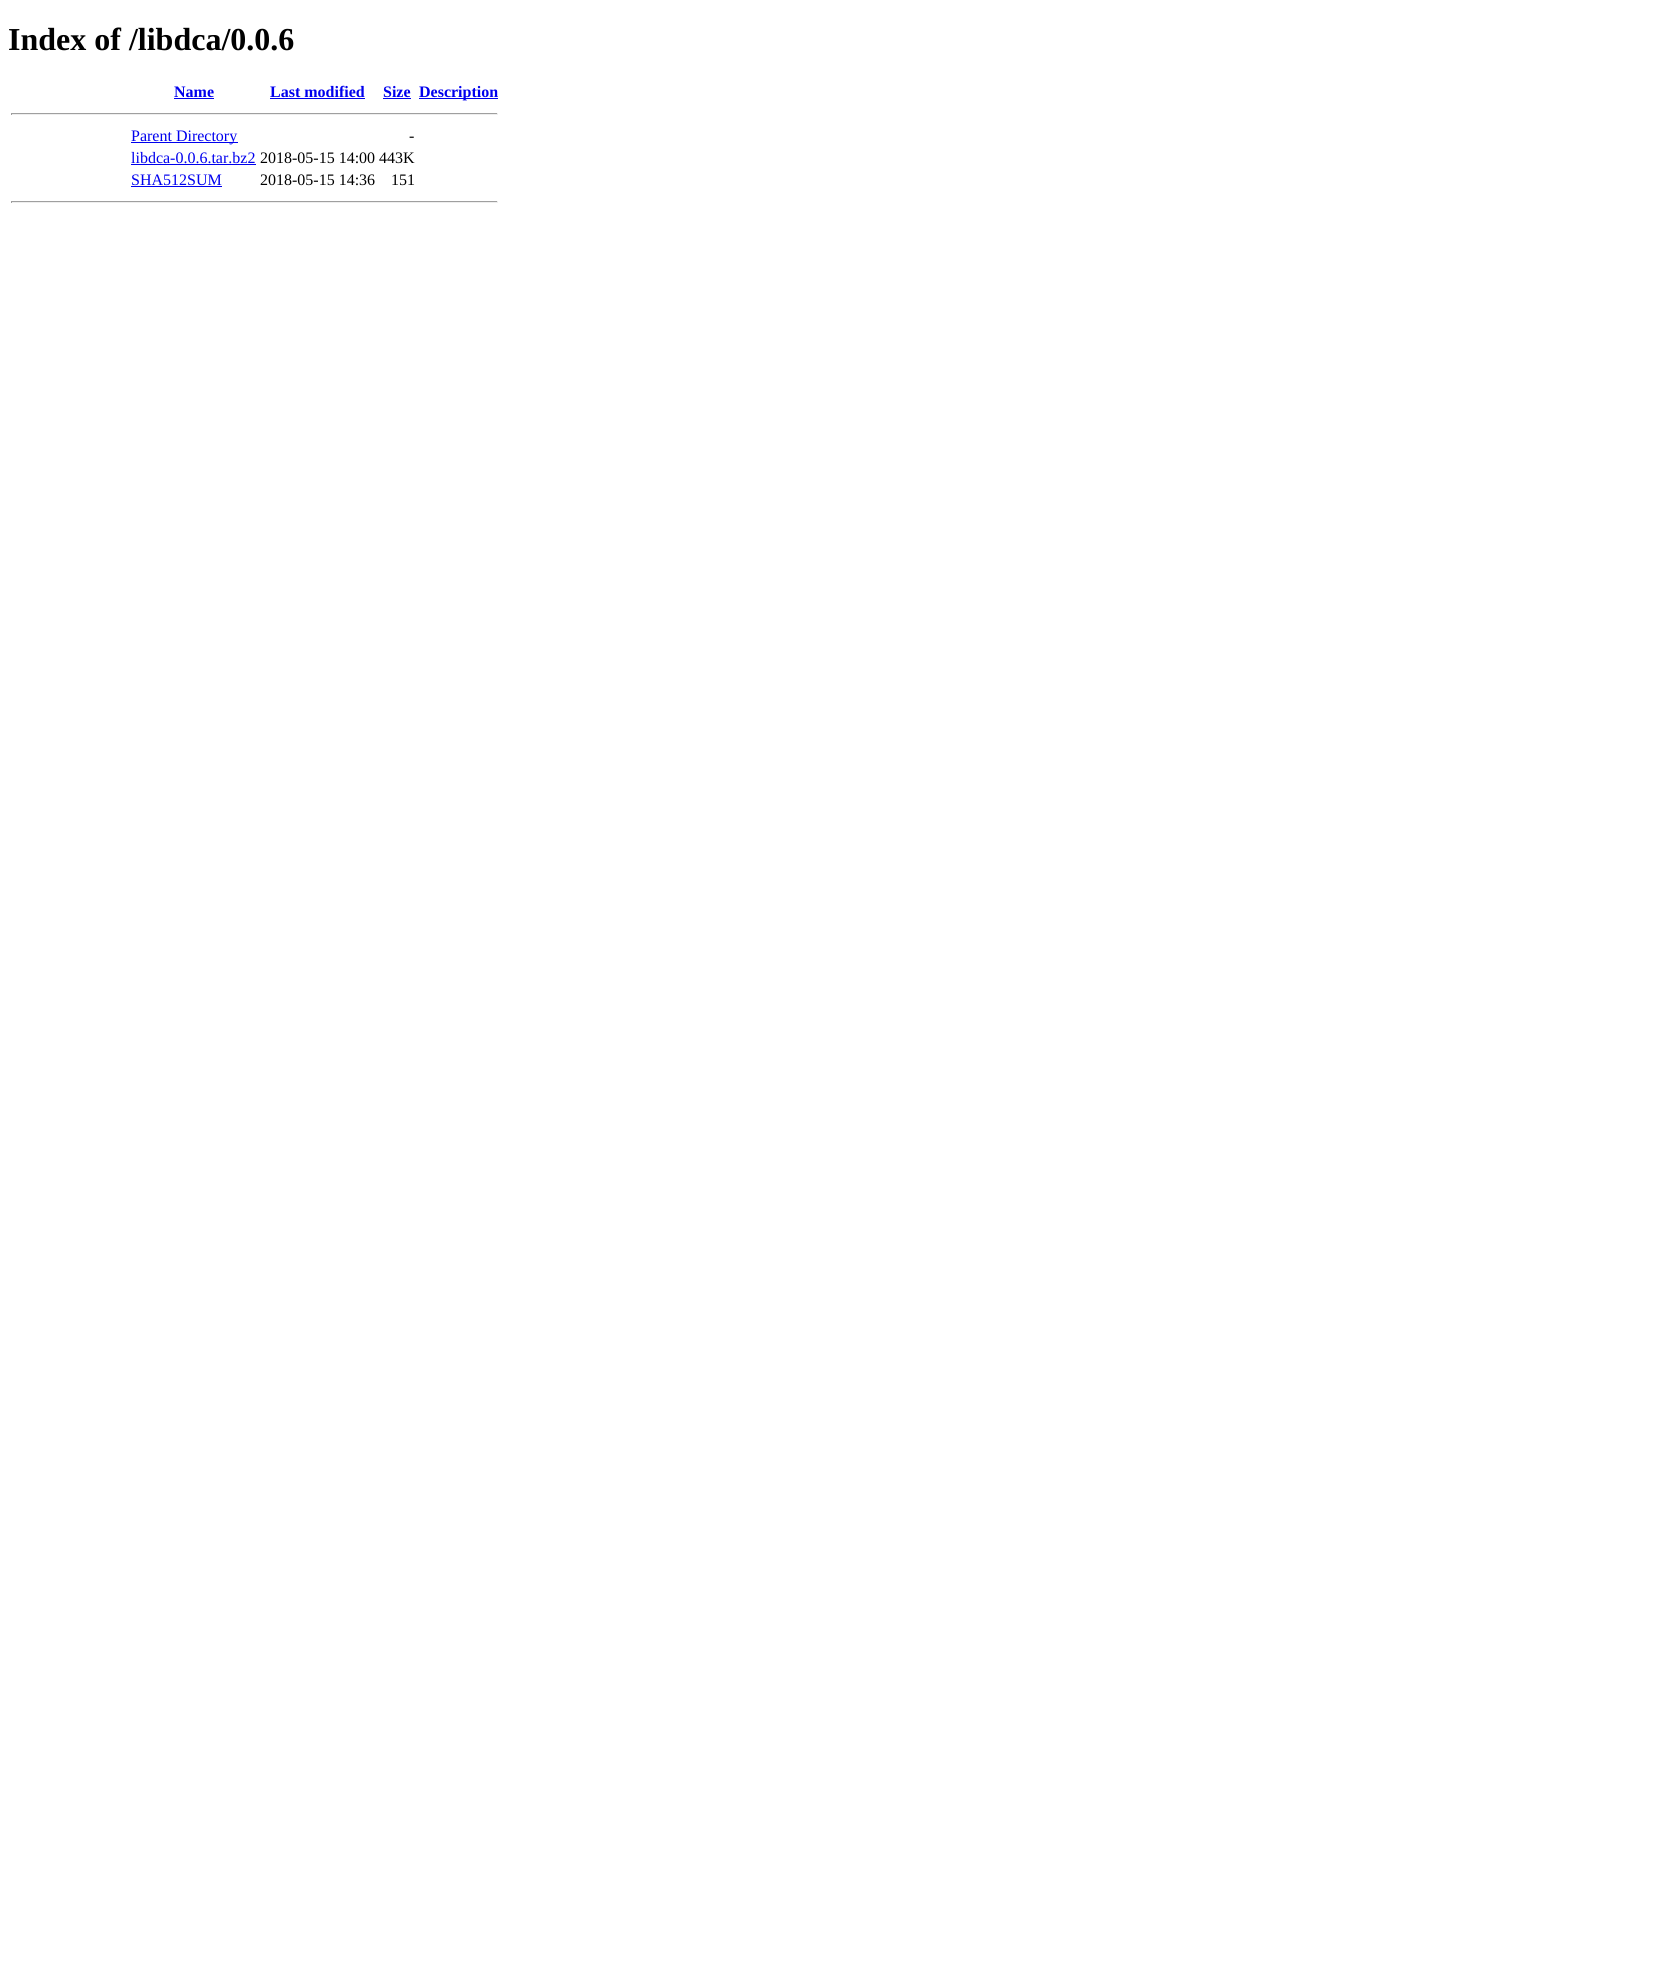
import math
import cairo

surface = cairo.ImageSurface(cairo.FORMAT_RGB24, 1663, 1964)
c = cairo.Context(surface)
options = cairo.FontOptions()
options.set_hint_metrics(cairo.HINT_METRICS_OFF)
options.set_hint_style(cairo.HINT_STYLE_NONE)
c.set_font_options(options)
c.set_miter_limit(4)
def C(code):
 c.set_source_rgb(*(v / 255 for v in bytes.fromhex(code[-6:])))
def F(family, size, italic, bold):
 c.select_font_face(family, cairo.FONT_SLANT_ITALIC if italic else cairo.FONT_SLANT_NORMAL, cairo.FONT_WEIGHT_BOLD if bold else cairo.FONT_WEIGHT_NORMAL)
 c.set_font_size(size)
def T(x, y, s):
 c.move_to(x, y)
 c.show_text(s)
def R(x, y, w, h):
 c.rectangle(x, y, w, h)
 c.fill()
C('ffffff')
c.paint()
F('Liberation Serif',32,0,1)
C('000000')
T(8,50,'Index of /libdca/0.0.6')
F('Liberation Serif',16,0,1)
C('0000ee')
T(174,97,'Name')
R(174,98,40,1)
T(270,97,'Last modified')
R(270,98,95,1)
T(383,97,'Size')
R(383,98,28,1)
R(419,98,79,1)
T(419,97,'Description')
C('9f9f9f')
R(11,113,487,1)
C('eeeeee')
R(497,113,1,2)
R(11,114,487,1)
C('9f9f9f')
R(11,113,1,2)
C('0000ee')
R(131,142,107,1)
F('Liberation Serif',16,0,0)
T(131,141,'Parent Directory')
C('000000')
T(409,141,'-')
C('0000ee')
T(131,163,'libdca-0.0.6.tar.bz2')
R(131,164,125,1)
C('000000')
T(260,163,'2018-05-15 14:00 443K')
C('0000ee')
T(131,185,'SHA512SUM')
R(131,186,91,1)
C('000000')
T(260,185,'2018-05-15 14:36')
T(391,185,'151')
C('9f9f9f')
R(11,201,487,1)
C('eeeeee')
R(497,201,1,2)
R(11,202,487,1)
C('9f9f9f')
R(11,201,1,2)
surface.write_to_png('o.png')
